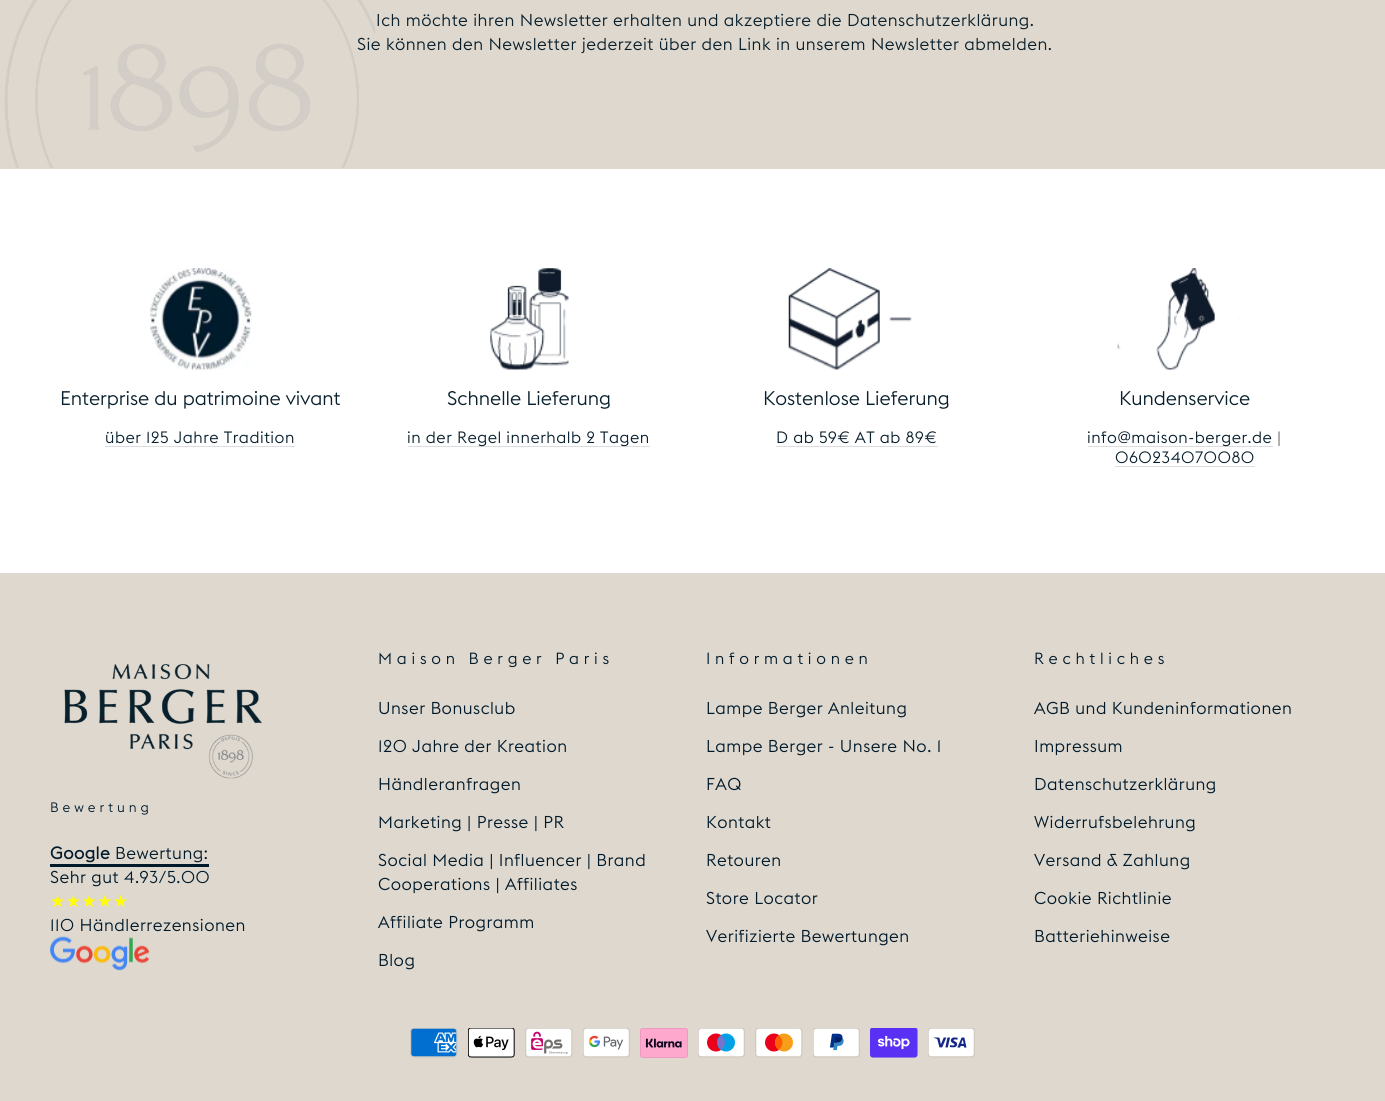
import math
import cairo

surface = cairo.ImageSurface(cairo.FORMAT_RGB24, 1385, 1101)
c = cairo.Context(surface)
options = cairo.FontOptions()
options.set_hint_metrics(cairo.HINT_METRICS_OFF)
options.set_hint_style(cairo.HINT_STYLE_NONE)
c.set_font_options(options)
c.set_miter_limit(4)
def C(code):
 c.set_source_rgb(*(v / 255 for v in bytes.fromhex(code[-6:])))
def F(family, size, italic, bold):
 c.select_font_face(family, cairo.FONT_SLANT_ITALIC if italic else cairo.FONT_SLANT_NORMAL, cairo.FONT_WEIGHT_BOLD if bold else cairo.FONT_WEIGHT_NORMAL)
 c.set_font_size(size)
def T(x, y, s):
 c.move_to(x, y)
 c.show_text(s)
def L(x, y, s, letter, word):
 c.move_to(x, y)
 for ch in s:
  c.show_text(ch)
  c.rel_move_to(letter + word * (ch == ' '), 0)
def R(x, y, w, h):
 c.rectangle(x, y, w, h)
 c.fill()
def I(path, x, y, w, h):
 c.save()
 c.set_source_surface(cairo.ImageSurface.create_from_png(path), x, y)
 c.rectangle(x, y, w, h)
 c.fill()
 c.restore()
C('ffffff')
c.paint()
C('dfd8ce')
R(0,0,1385,169)
I('1.png',4,0,371,168)
F('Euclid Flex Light',17,0,0)
C('081f2c')
L(376,26,'Ich möchte ihren Newsletter erhalten und akzeptiere die Datenschutzerklärung.',.5,0)
L(357,50,'Sie können den Newsletter jederzeit über den Link in unserem Newsletter abmelden.',.5,0)
I('2.png',150,268,102,102)
F('Euclid Flex Light',19.5,0,0)
T(60,405,'Enterprise du patrimoine vivant')
F('Euclid Flex Light',16.25,0,0)
L(105,443,'über 125 Jahre Tradition',.5,0)
C('dadddf')
R(105,446,190,1)
I('3.png',490,268,79,102)
F('Euclid Flex Light',19.5,0,0)
C('081f2c')
T(447,405,'Schnelle Lieferung')
C('dadddf')
R(408,446,242,1)
F('Euclid Flex Light',16.25,0,0)
C('081f2c')
L(407,443,'in der Regel innerhalb 2 Tagen',.5,0)
I('4.png',788,268,124,102)
F('Euclid Flex Light',19.5,0,0)
T(763,405,'Kostenlose Lieferung')
F('Euclid Flex Light',16.25,0,0)
L(776,443,'D ab 59€ AT ab 89€',.5,0)
C('dadddf')
R(776,446,162,1)
I('5.png',1117,268,123,102)
F('Euclid Flex Light',19.5,0,0)
C('081f2c')
T(1119,405,'Kundenservice')
C('dadddf')
R(1088,446,185,1)
F('Euclid Flex Light',16.25,0,0)
C('081f2c')
L(1087,443,'info@maison-berger.de',.5,0)
C('666666')
L(1277,443,'|',.5,0)
C('081f2c')
L(1115,463,'060234070080',.5,0)
C('dadddf')
R(1115,466,140,1)
C('dfd8ce')
R(0,573,1385,528)
I('6.png',64,664,198,115)
F('Euclid Flex Light',13.5,0,0)
C('001a2b')
L(50,812,'Bewertung',4,0)
F('Euclid Flex',17,0,1)
L(50,859,'Google',.5,0)
R(50,864,159,3)
F('Euclid Flex Light',17,0,0)
L(115,859,'Bewertung:',.5,0)
L(50,883,'Sehr gut 4.93/5.00',.5,0)
F('DejaVu Sans',17,0,0)
C('ffff00')
L(50,907,'★★★★★',.5,0)
F('Euclid Flex Light',17,0,0)
C('001a2b')
L(50,931,'110 Händlerrezensionen',.5,0)
I('7.png',50,936,100,35)
F('Euclid Flex Light',16,0,0)
L(378,664,'Maison Berger Paris',4.75,0)
F('Euclid Flex Light',17,0,0)
L(378,714,'Unser Bonusclub',.5,0)
L(378,752,'120 Jahre der Kreation',.5,0)
L(378,790,'Händleranfragen',.5,0)
L(378,828,'Marketing | Presse | PR',.5,0)
L(378,866,'Social Media | Influencer | Brand',.5,0)
L(378,890,'Cooperations | Affiliates',.5,0)
L(378,928,'Affiliate Programm',.5,0)
L(378,966,'Blog',.5,0)
F('Euclid Flex Light',16,0,0)
L(706,664,'Informationen',4.75,0)
F('Euclid Flex Light',17,0,0)
L(706,714,'Lampe Berger Anleitung',.5,0)
L(706,752,'Lampe Berger - Unsere No. 1',.5,0)
L(706,790,'FAQ',.5,0)
L(706,828,'Kontakt',.5,0)
L(706,866,'Retouren',.5,0)
L(706,904,'Store Locator',.5,0)
L(706,942,'Verifizierte Bewertungen',.5,0)
F('Euclid Flex Light',16,0,0)
L(1034,664,'Rechtliches',4.75,0)
F('Euclid Flex Light',17,0,0)
L(1034,714,'AGB und Kundeninformationen',.5,0)
L(1034,752,'Impressum',.5,0)
L(1034,790,'Datenschutzerklärung',.5,0)
L(1034,828,'Widerrufsbelehrung',.5,0)
L(1034,866,'Versand & Zahlung',.5,0)
L(1034,904,'Cookie Richtlinie',.5,0)
L(1034,942,'Batteriehinweise',.5,0)
I('8.png',410,1028,48,30)
I('9.png',468,1028,47,30)
I('10.png',525,1028,48,30)
I('11.png',583,1028,47,30)
I('12.png',640,1028,48,30)
I('13.png',698,1028,47,30)
I('14.png',755,1028,48,30)
I('15.png',813,1028,47,30)
I('16.png',870,1028,48,30)
I('17.png',928,1028,47,30)
surface.write_to_png('o.png')
